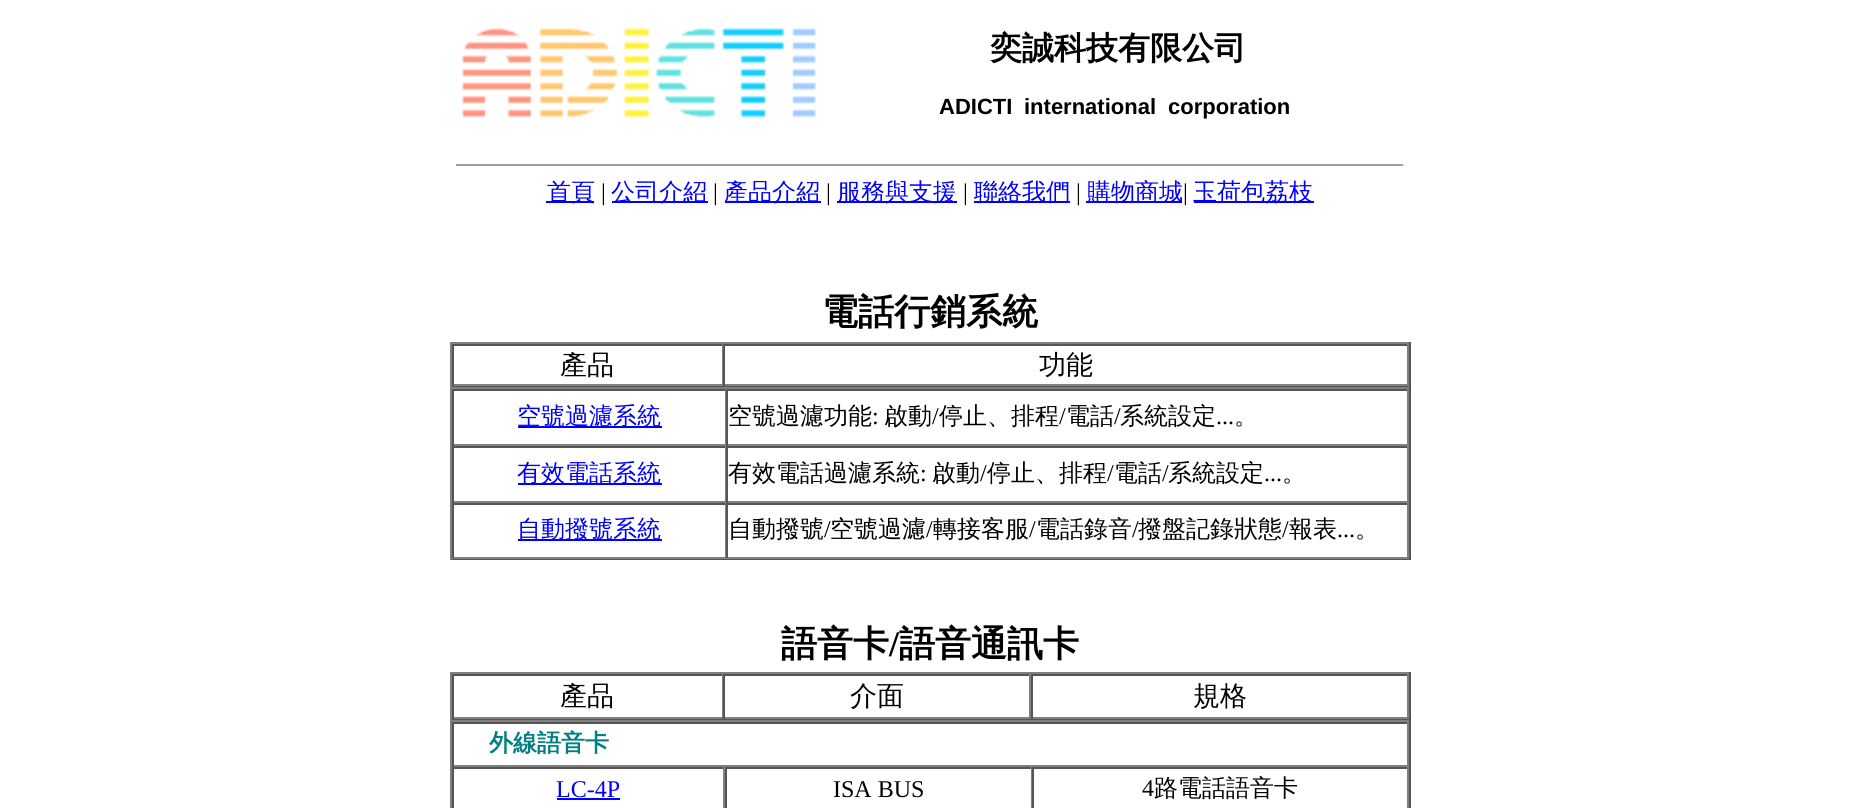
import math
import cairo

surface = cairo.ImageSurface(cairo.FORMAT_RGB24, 1859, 808)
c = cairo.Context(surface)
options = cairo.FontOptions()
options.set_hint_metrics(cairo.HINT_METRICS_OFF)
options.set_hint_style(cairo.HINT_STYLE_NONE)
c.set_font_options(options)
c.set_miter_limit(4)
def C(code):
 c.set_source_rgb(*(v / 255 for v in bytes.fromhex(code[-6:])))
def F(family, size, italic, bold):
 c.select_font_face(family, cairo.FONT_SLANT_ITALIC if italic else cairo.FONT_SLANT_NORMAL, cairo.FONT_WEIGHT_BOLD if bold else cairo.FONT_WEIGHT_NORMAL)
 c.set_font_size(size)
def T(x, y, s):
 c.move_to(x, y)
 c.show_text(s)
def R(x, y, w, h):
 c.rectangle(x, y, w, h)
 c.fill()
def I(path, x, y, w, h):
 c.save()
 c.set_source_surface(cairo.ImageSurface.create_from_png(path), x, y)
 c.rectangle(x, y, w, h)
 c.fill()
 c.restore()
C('ffffff')
c.paint()
I('1.png',462,28,355,90)
F('WenQuanYi Zen Hei',32,0,1)
C('000000')
T(990,59,'奕誠科技有限公司')
F('Liberation Sans',22,0,1)
T(939,114,'ADICTI')
T(1024,114,'international')
T(1168,114,'corporation')
C('9f9f9f')
R(456,164,948,2)
C('eeeeee')
R(1403,164,2,2)
C('0000ff')
R(546,201,48,2)
F('WenQuanYi Zen Hei Medium',24,0,0)
T(547,200,'首頁')
F('Liberation Serif',24,0,0)
C('000000')
T(601,200,'|')
C('0000ff')
R(612,201,96,2)
F('WenQuanYi Zen Hei Medium',24,0,0)
T(611,200,'公司介紹')
F('Liberation Serif',24,0,0)
C('000000')
T(713,200,'|')
C('0000ff')
R(725,201,96,2)
F('WenQuanYi Zen Hei Medium',24,0,0)
T(724,200,'產品介紹')
F('Liberation Serif',24,0,0)
C('000000')
T(826,200,'|')
C('0000ff')
R(837,201,120,2)
F('WenQuanYi Zen Hei Medium',24,0,0)
T(837,200,'服務與支援')
F('Liberation Serif',24,0,0)
C('000000')
T(963,200,'|')
C('0000ff')
R(974,201,96,2)
F('WenQuanYi Zen Hei Medium',24,0,0)
T(974,200,'聯絡我們')
F('Liberation Serif',24,0,0)
C('000000')
T(1076,200,'|')
C('0000ff')
R(1086,201,96,2)
F('WenQuanYi Zen Hei Medium',24,0,0)
T(1087,200,'購物商城')
F('Liberation Serif',24,0,0)
C('000000')
T(1183,200,'|')
C('0000ff')
R(1194,201,120,2)
F('WenQuanYi Zen Hei Medium',24,0,0)
T(1193,200,'玉荷包荔枝')
F('WenQuanYi Zen Hei',36,0,1)
C('000000')
T(822,324,'電話行銷系統')
C('808080')
R(450,342,960,2)
C('555555')
R(1409,342,2,45)
R(450,386,960,1)
C('808080')
R(450,342,2,45)
C('555555')
R(452,344,957,2)
C('808080')
R(722,344,1,42)
R(452,384,271,2)
C('555555')
R(452,344,2,42)
F('WenQuanYi Zen Hei Medium',27,0,0)
C('000000')
T(560,374,'產品')
C('808080')
R(1407,344,2,42)
R(723,384,686,2)
C('555555')
R(723,344,2,42)
C('000000')
T(1039,374,'功能')
C('808080')
R(450,387,960,2)
C('555555')
R(1409,387,2,173)
R(450,558,960,2)
C('808080')
R(450,387,2,173)
C('555555')
R(452,389,957,2)
C('808080')
R(725,389,1,57)
R(452,444,274,2)
C('555555')
R(452,389,2,57)
C('0000ff')
R(518,426,144,2)
F('WenQuanYi Zen Hei Medium',24,0,0)
T(517,424,'空號過濾系統')
C('808080')
R(1407,389,2,57)
R(726,444,683,2)
C('555555')
R(726,389,2,57)
C('000000')
T(728,424,'空號過濾功能')
F('Liberation Serif',24,0,0)
T(872,424,':')
F('WenQuanYi Zen Hei Medium',24,0,0)
T(884,424,'啟動')
F('Liberation Serif',24,0,0)
T(932,424,'/')
F('WenQuanYi Zen Hei Medium',24,0,0)
T(939,424,'停止、排程')
F('Liberation Serif',24,0,0)
T(1059,424,'/')
F('WenQuanYi Zen Hei Medium',24,0,0)
T(1066,424,'電話')
F('Liberation Serif',24,0,0)
T(1114,424,'/')
F('WenQuanYi Zen Hei Medium',24,0,0)
T(1120,424,'系統設定')
F('Liberation Serif',24,0,0)
T(1216,424,'...')
F('WenQuanYi Zen Hei Medium',24,0,0)
T(1234,424,'。')
C('555555')
R(452,446,957,2)
C('808080')
R(725,446,1,57)
R(452,501,274,2)
C('555555')
R(452,446,2,57)
C('0000ff')
R(518,483,144,2)
T(517,481,'有效電話系統')
C('808080')
R(1407,446,2,57)
R(726,501,683,2)
C('555555')
R(726,446,2,57)
C('000000')
T(728,481,'有效電話過濾系統')
F('Liberation Serif',24,0,0)
T(920,481,':')
F('WenQuanYi Zen Hei Medium',24,0,0)
T(932,481,'啟動')
F('Liberation Serif',24,0,0)
T(980,481,'/')
F('WenQuanYi Zen Hei Medium',24,0,0)
T(987,481,'停止、排程')
F('Liberation Serif',24,0,0)
T(1107,481,'/')
F('WenQuanYi Zen Hei Medium',24,0,0)
T(1114,481,'電話')
F('Liberation Serif',24,0,0)
T(1162,481,'/')
F('WenQuanYi Zen Hei Medium',24,0,0)
T(1168,481,'系統設定')
F('Liberation Serif',24,0,0)
T(1264,481,'...')
F('WenQuanYi Zen Hei Medium',24,0,0)
T(1282,481,'。')
C('555555')
R(452,503,957,2)
C('808080')
R(725,503,1,55)
R(452,557,274,2)
C('555555')
R(452,503,2,55)
C('0000ff')
R(518,539,144,2)
T(517,537,'自動撥號系統')
C('808080')
R(1407,503,2,55)
R(726,557,683,2)
C('555555')
R(726,503,2,55)
C('000000')
T(728,537,'自動撥號')
F('Liberation Serif',24,0,0)
T(824,537,'/')
F('WenQuanYi Zen Hei Medium',24,0,0)
T(830,537,'空號過濾')
F('Liberation Serif',24,0,0)
T(926,537,'/')
F('WenQuanYi Zen Hei Medium',24,0,0)
T(933,537,'轉接客服')
F('Liberation Serif',24,0,0)
T(1029,537,'/')
F('WenQuanYi Zen Hei Medium',24,0,0)
T(1036,537,'電話錄音')
F('Liberation Serif',24,0,0)
T(1132,537,'/')
F('WenQuanYi Zen Hei Medium',24,0,0)
T(1138,537,'撥盤記錄狀態')
F('Liberation Serif',24,0,0)
T(1282,537,'/')
F('WenQuanYi Zen Hei Medium',24,0,0)
T(1289,537,'報表')
F('Liberation Serif',24,0,0)
T(1337,537,'...')
F('WenQuanYi Zen Hei Medium',24,0,0)
T(1355,537,'。')
F('WenQuanYi Zen Hei',36,0,1)
T(781,656,'語音卡')
F('Liberation Serif',36,0,1)
T(889,656,'/')
F('WenQuanYi Zen Hei',36,0,1)
T(899,656,'語音通訊卡')
C('808080')
R(450,672,960,2)
C('555555')
R(1409,672,2,48)
R(450,719,960,1)
C('808080')
R(450,672,2,48)
C('555555')
R(452,674,957,2)
C('808080')
R(722,674,1,45)
R(452,717,271,2)
C('555555')
R(452,674,2,45)
F('WenQuanYi Zen Hei Medium',27,0,0)
C('000000')
T(560,705,'產品')
C('808080')
R(1029,674,2,45)
R(723,717,308,2)
C('555555')
R(723,674,2,45)
C('000000')
T(850,705,'介面')
C('808080')
R(1407,674,2,45)
R(1031,717,378,2)
C('555555')
R(1031,674,2,45)
C('000000')
T(1193,705,'規格')
C('808080')
R(450,720,960,2)
C('555555')
R(1409,720,2,88)
C('808080')
R(450,720,2,88)
C('555555')
R(452,722,957,2)
C('808080')
R(1407,722,2,45)
R(452,765,957,2)
C('555555')
R(452,722,2,45)
F('WenQuanYi Zen Hei',24,0,1)
C('008080')
T(489,751,'外線語音卡')
C('555555')
R(452,767,957,2)
C('808080')
R(723,767,2,41)
C('555555')
R(452,767,2,41)
F('Liberation Serif',24,0,0)
C('0000ff')
T(556,797,'LC-4P')
R(557,798,63,2)
C('808080')
R(1031,767,1,41)
C('555555')
R(725,767,2,41)
C('000000')
T(833,797,'ISA BUS')
C('808080')
R(1407,767,2,41)
C('555555')
R(1032,767,2,41)
C('000000')
T(1142,796,'4')
F('WenQuanYi Zen Hei Medium',24,0,0)
T(1154,796,'路電話語音卡')
surface.write_to_png('o.png')
